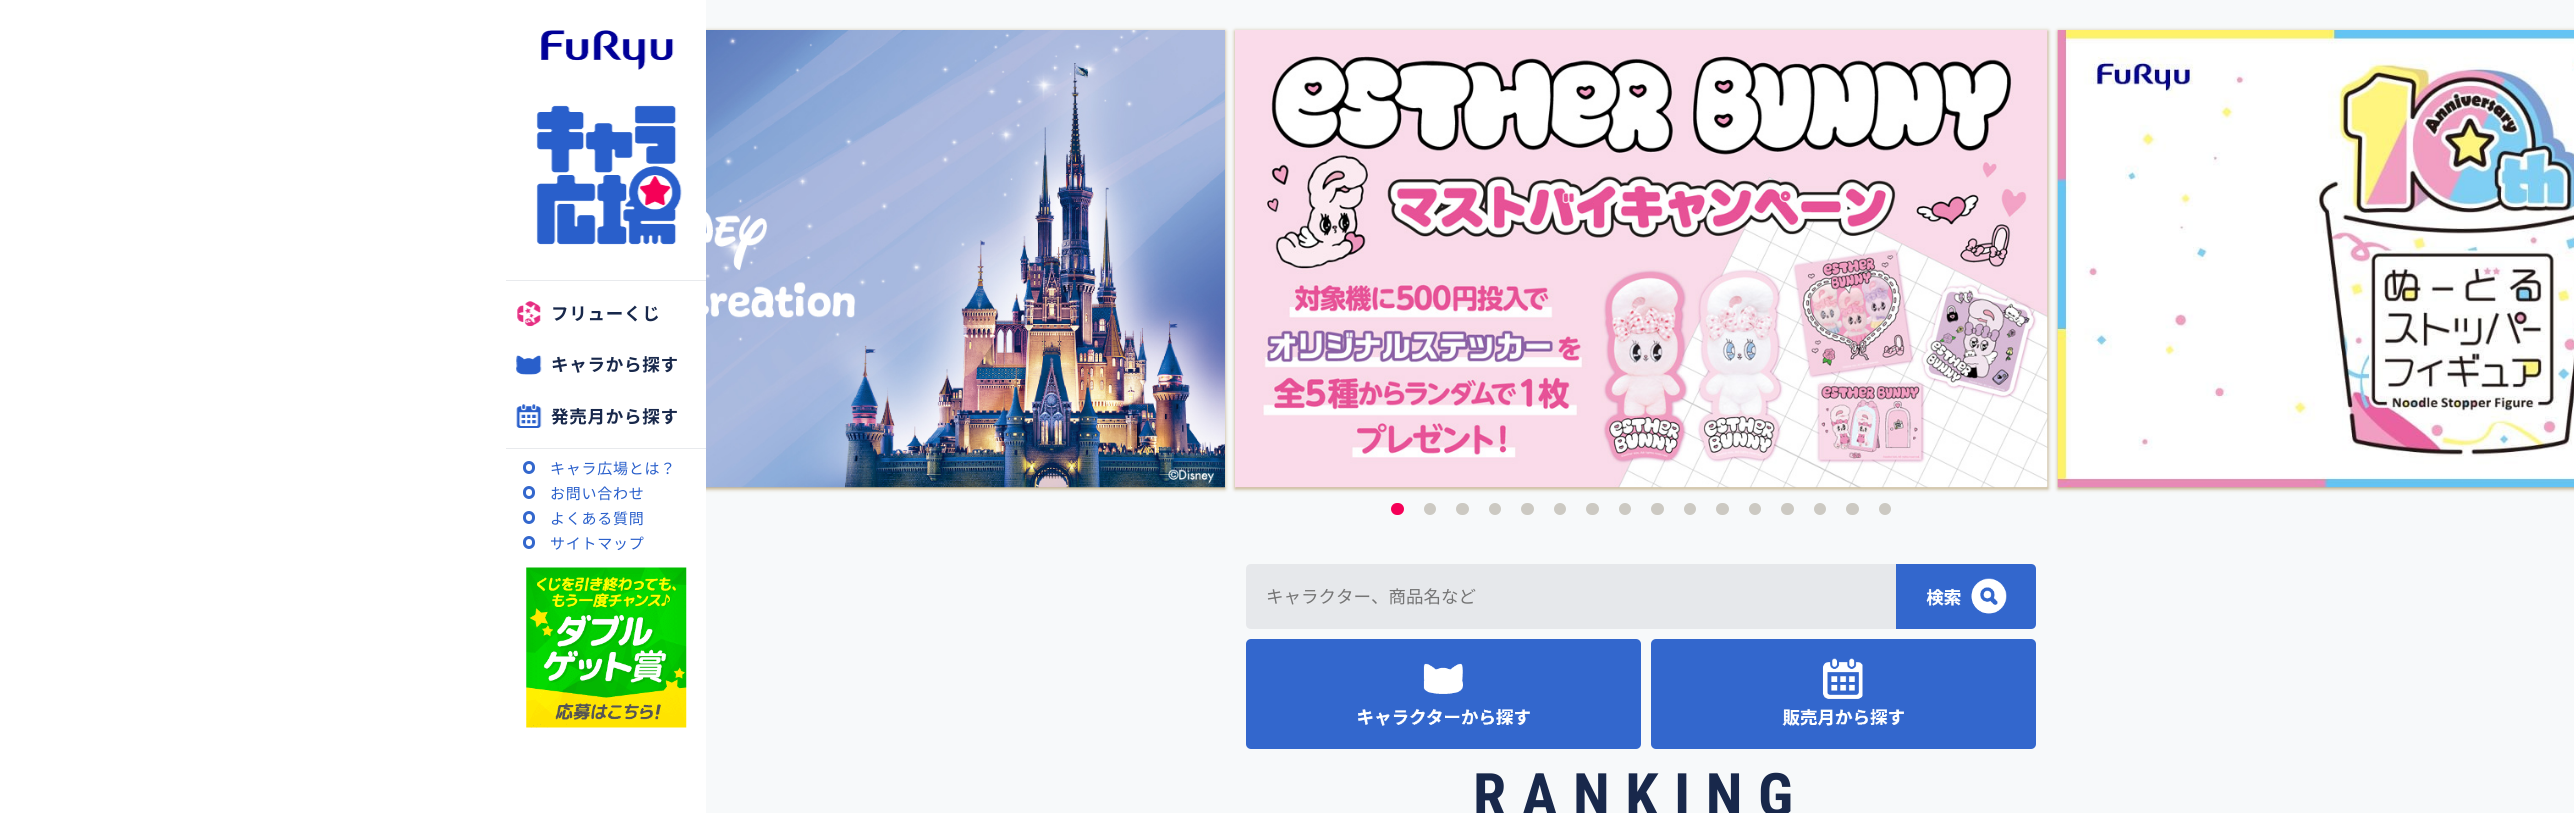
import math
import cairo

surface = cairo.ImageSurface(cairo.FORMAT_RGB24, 2574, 813)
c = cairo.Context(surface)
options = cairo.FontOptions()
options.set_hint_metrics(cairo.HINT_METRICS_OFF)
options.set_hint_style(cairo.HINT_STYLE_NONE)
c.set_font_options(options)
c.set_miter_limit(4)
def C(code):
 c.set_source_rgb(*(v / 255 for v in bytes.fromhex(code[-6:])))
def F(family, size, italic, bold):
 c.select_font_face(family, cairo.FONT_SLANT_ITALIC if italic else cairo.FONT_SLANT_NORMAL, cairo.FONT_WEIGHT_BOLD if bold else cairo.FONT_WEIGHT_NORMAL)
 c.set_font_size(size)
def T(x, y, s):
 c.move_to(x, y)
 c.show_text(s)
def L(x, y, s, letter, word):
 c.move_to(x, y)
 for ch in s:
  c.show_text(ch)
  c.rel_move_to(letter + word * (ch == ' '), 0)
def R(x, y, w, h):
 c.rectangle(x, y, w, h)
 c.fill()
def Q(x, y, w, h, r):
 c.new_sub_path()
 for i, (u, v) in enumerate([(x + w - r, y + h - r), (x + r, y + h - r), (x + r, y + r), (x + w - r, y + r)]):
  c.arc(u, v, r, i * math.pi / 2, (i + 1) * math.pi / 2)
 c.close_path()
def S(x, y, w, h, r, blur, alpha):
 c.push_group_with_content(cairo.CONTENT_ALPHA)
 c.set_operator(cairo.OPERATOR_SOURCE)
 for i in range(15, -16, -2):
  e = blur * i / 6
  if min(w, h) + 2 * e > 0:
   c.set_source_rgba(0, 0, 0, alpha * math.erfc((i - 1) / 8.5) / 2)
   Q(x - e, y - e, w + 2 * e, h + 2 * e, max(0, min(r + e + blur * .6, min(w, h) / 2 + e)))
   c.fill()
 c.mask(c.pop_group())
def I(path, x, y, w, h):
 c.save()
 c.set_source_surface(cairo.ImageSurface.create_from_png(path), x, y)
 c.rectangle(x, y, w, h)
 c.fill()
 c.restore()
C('ffffff')
c.paint()
C('f7f9fa')
R(706,0,1868,813)
c.save()
c.rectangle(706,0,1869,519)
c.clip()
C('805500')
S(413,31,812,458,0,2,.5)
c.restore()
I('1.png',541,30,133,40)
I('2.png',536,105,146,140)
C('e8eaed')
R(506,280,200,1)
R(506,448,200,1)
I('3.png',517,301,24,26)
F('Noto Sans JP',17.5,0,1)
C('18284b')
L(551,320,'フリューくじ',.75,0)
I('4.png',516,355,26,20)
L(551,371,'キャラから探す',.75,0)
I('5.png',516,404,26,24)
L(551,423,'発売月から探す',.75,0)
Q(524.5,462.5,9,10,4.5)
C('3367cd')
c.set_line_width(3)
c.stroke()
F('Noto Sans JP',15,0,0)
C('295fcb')
L(550,474,'キャラ広場とは？',.75,0)
Q(524.5,487.5,9,10,4.5)
C('3367cd')
c.stroke()
C('295fcb')
L(550,499,'お問い合わせ',.75,0)
Q(524.5,512.5,9,10,4.5)
C('3367cd')
c.stroke()
C('295fcb')
L(550,524,'よくある質問',.75,0)
Q(524.5,537.5,9,10,4.5)
C('3367cd')
c.stroke()
C('295fcb')
L(550,549,'サイトマップ',.75,0)
I('6.png',526,567,161,161)
I('7.png',706,30,519,458)
C('805500')
S(1235,31,813,458,0,2,.5)
I('8.png',1235,30,813,458)
S(2058,31,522,458,0,2,.5)
I('9.png',2057,30,517,458)
C('f50057')
Q(1391,503,13,12,6)
c.fill()
C('ccc9c2')
c.arc(1430,509,6,0,2 * math.pi)
c.fill()
Q(1456,503,13,12,6)
c.fill()
c.arc(1495,509,6,0,2 * math.pi)
c.fill()
Q(1521,503,13,12,6)
c.fill()
c.arc(1560,509,6,0,2 * math.pi)
c.fill()
Q(1586,503,13,12,6)
c.fill()
c.arc(1625,509,6,0,2 * math.pi)
c.fill()
Q(1651,503,13,12,6)
c.fill()
c.arc(1690,509,6,0,2 * math.pi)
c.fill()
Q(1716,503,13,12,6)
c.fill()
c.arc(1755,509,6,0,2 * math.pi)
c.fill()
Q(1781,503,13,12,6)
c.fill()
c.arc(1820,509,6,0,2 * math.pi)
c.fill()
Q(1846,503,13,12,6)
c.fill()
c.arc(1885,509,6,0,2 * math.pi)
c.fill()
C('e6e8eb')
c.new_path()
c.move_to(1251,564)
c.line_to(1896,564)
c.line_to(1896,629)
c.line_to(1251,629)
c.curve_to(1248,629,1246,627,1246,624)
c.line_to(1246,569)
c.curve_to(1246,566,1248,564,1251,564)
c.close_path()
c.fill()
F('Noto Sans JP',17.5,0,0)
C('757575')
T(1266,603,'キャラクター、商品名など')
C('3367cd')
c.new_path()
c.move_to(1896,564)
c.line_to(2031,564)
c.curve_to(2034,564,2036,566,2036,569)
c.line_to(2036,624)
c.curve_to(2036,627,2034,629,2031,629)
c.line_to(1896,629)
c.close_path()
c.fill()
I('10.png',1926,578,81,36)
Q(1246,639,395,110,5)
c.fill()
I('11.png',1358,663,172,63)
Q(1651,639,385,110,5)
c.fill()
I('12.png',1782,658,122,68)
F('Roboto Condensed',60,0,1)
C('18284b')
L(1473,816,'RANKING',15.5,0)
surface.write_to_png('o.png')
